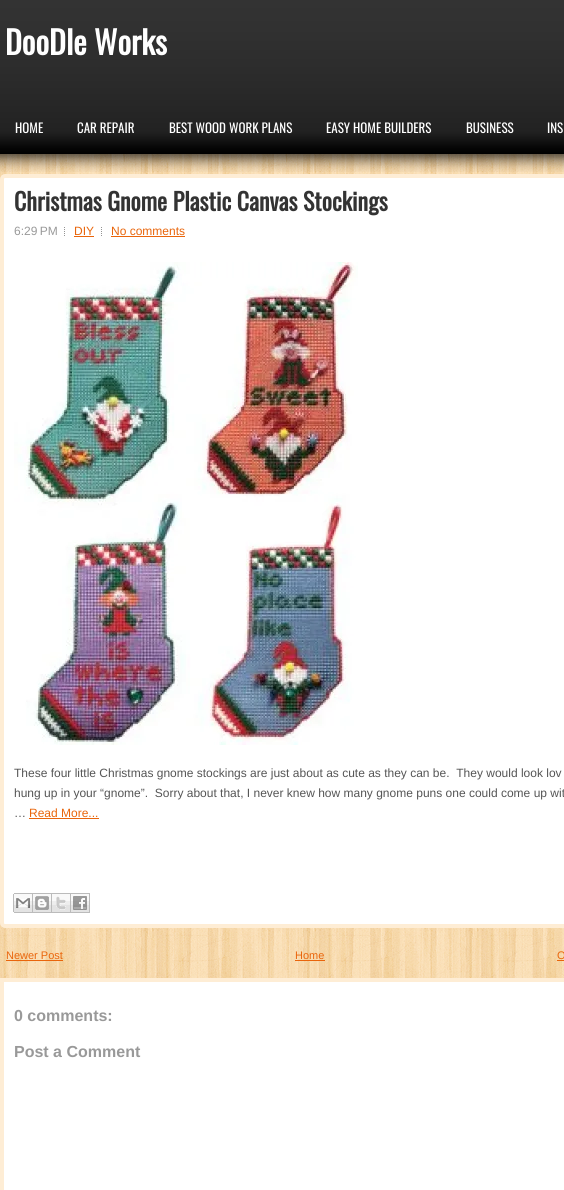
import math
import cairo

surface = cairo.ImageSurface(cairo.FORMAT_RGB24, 564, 1190)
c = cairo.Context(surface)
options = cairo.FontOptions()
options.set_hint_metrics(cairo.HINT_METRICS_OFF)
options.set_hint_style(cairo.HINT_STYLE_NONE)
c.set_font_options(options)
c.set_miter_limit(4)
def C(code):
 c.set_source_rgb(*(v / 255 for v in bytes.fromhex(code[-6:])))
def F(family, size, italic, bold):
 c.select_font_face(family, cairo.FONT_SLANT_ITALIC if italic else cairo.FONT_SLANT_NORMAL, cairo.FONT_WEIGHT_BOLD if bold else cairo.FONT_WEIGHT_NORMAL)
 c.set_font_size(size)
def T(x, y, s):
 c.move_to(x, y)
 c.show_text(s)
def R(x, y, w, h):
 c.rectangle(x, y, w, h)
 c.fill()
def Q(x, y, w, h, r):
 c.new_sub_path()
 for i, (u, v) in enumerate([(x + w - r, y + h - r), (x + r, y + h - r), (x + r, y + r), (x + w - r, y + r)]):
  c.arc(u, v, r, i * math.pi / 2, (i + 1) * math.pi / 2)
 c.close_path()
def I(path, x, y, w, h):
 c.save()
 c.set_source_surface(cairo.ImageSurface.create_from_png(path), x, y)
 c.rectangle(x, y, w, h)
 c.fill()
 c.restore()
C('ffffff')
c.paint()
I('1.png',0,154,564,824)
I('2.png',0,0,564,172)
F('Oswald',32,0,1)
C('ffffff')
T(5,55,'DooDle Works')
F('Oswald',13,0,0)
T(15,133,'HOME')
T(77,133,'CAR REPAIR')
T(169,133,'BEST WOOD WORK PLANS')
T(326,133,'EASY HOME BUILDERS')
T(466,133,'BUSINESS')
T(547,133,'INS')
Q(2,176,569,750,3)
c.fill_preserve()
C('feedd5')
c.set_line_width(4)
c.stroke()
F('Oswald',24,0,1)
C('333333')
T(14,211,'Christmas Gnome Plastic Canvas Stockings')
F('Liberation Sans',12,0,0)
C('999999')
T(14,235,'6:29 PM')
I('3.png',64,227,1,9)
C('e9650b')
T(74,235,'DIY')
R(74,236,20,1)
I('3.png',101,227,1,9)
T(111,235,'No comments')
R(111,236,74,1)
I('4.png',14,262,344,483)
C('555555')
T(14,777,'These four little Christmas gnome stockings are just about as cute as they can be.  They would look lov')
T(14,797,'hung up in your “gnome”.  Sorry about that, I never knew how many gnome puns one could come up wit')
T(14,817,'…')
C('e9650b')
T(29,817,'Read More...')
R(29,818,70,1)
I('5.png',13,893,20,20)
I('6.png',33,893,19,20)
I('7.png',52,893,19,20)
I('8.png',71,893,19,20)
F('Liberation Sans',11,0,0)
T(6,959,'Newer Post')
R(6,960,57,1)
T(295,959,'Home')
R(295,960,30,1)
T(557,959,'O')
R(557,960,7,1)
c.rectangle(2,980,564,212)
C('feedd5')
c.stroke()
F('Liberation Sans',16,0,1)
C('999999')
T(14,1021,'0 comments:')
T(14,1057,'Post a Comment')
surface.write_to_png('o.png')
